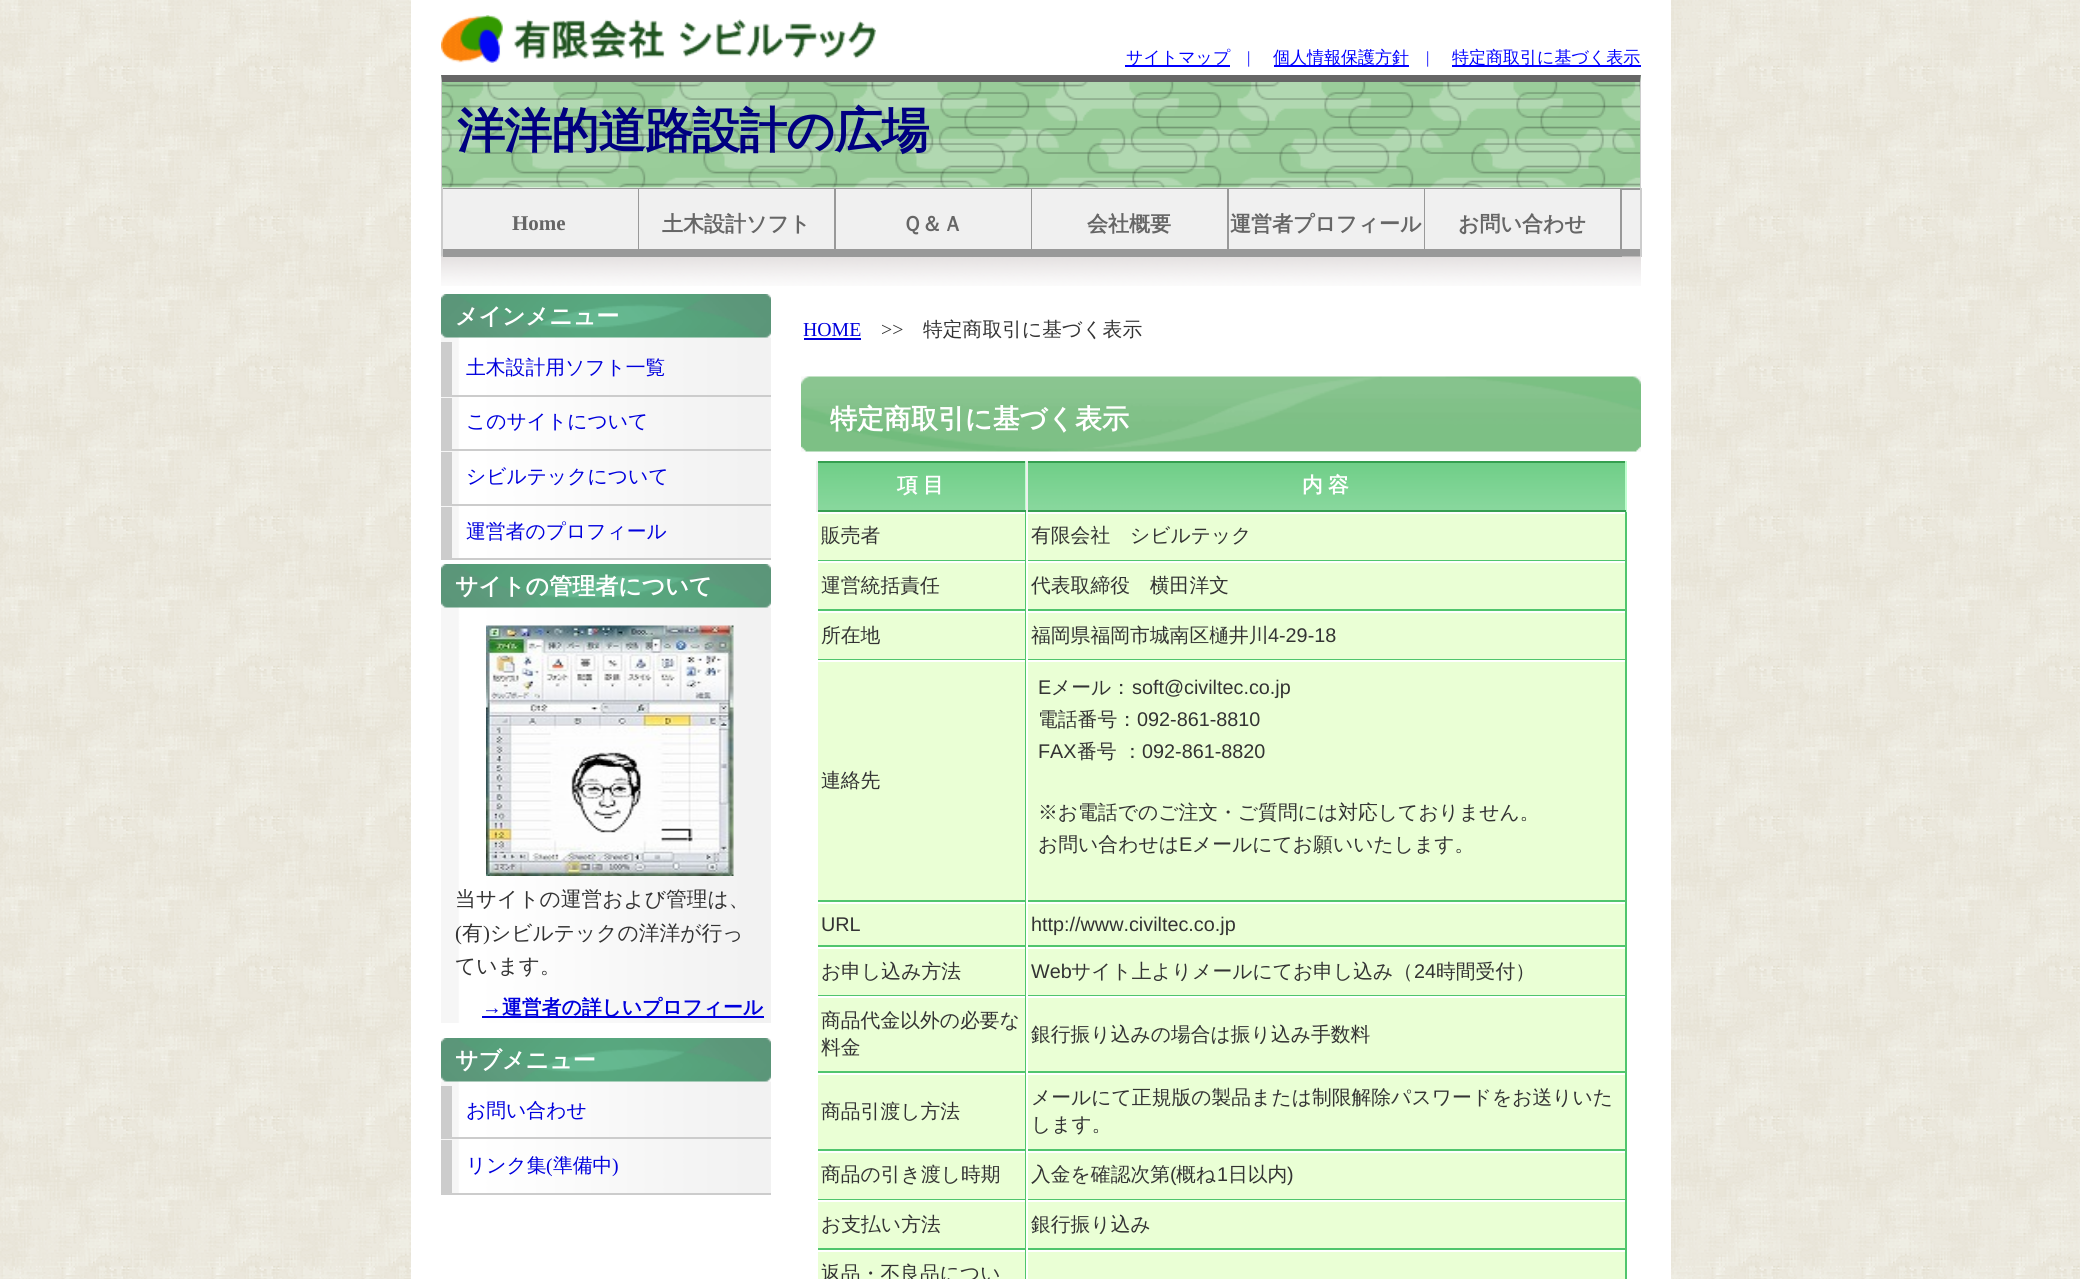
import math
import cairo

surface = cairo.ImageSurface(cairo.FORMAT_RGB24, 2080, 1279)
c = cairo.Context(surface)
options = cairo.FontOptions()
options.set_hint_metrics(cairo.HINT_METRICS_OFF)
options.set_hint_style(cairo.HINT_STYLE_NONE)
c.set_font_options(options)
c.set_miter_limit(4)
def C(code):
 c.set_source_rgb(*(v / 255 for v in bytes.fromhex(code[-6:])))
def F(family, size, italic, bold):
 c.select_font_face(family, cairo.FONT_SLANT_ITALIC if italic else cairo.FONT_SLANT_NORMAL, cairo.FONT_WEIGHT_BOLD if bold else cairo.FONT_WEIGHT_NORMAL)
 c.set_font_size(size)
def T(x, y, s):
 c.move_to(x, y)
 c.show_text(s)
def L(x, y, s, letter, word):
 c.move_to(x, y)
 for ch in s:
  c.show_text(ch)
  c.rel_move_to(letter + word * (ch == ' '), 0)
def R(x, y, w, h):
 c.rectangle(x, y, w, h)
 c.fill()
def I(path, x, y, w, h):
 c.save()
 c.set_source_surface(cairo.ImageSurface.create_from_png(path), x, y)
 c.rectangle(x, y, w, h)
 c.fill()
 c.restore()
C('ffffff')
c.paint()
I('1.png',0,0,2080,1279)
C('ffffff')
R(411,0,1260,1279)
I('2.png',441,15,435,48)
C('0000ff')
R(1125,65,105,2)
F('WenQuanYi Zen Hei Medium',17,0,0)
T(1126,63,'サイトマップ')
F('Liberation Serif',17,0,0)
T(1247,63,'|')
R(1274,65,135,2)
F('WenQuanYi Zen Hei Medium',17,0,0)
T(1273,63,'個人情報保護方針')
F('Liberation Serif',17,0,0)
T(1426,63,'|')
R(1452,65,189,2)
F('WenQuanYi Zen Hei Medium',17,0,0)
T(1452,63,'特定商取引に基づく表示')
I('3.png',441,75,1200,113)
C('666666')
c.new_path()
c.move_to(441,75)
c.line_to(1641,75)
c.line_to(1640,82)
c.line_to(442,82)
c.close_path()
c.fill()
C('cccccc')
c.new_path()
c.move_to(1641,75)
c.line_to(1641,188)
c.line_to(1640,188)
c.line_to(1640,82)
c.close_path()
c.fill()
c.new_path()
c.move_to(441,188)
c.line_to(441,75)
c.line_to(442,82)
c.line_to(442,188)
c.close_path()
c.fill()
F('WenQuanYi Zen Hei',48,0,1)
C('000080')
L(457,147,'洋洋的道路設計の広場',-1,0)
C('cccccc')
R(1640,188,2,69)
R(441,188,2,69)
C('f0f0f0')
R(1622,190,18,59)
C('999999')
R(443,188,1197,2)
R(1622,249,18,8)
I('4.png',441,256,1200,30)
R(638,189,1,68)
C('f0f0f0')
R(443,189,195,60)
C('999999')
R(443,249,195,8)
F('Liberation Serif',21,0,1)
C('666666')
T(512,230,'Home')
C('999999')
R(834,189,2,68)
C('f0f0f0')
R(639,189,195,60)
C('999999')
R(639,249,195,8)
F('WenQuanYi Zen Hei',21,0,1)
C('666666')
T(662,231,'土木設計ソフト')
C('999999')
R(1031,189,1,68)
C('f0f0f0')
R(836,189,195,60)
C('999999')
R(836,249,195,8)
C('666666')
T(902,231,'Ｑ＆Ａ')
C('999999')
R(1227,189,2,68)
C('f0f0f0')
R(1032,189,195,60)
C('999999')
R(1032,249,195,8)
C('666666')
T(1087,231,'会社概要')
C('999999')
R(1424,189,1,68)
C('f0f0f0')
R(1229,189,195,60)
C('999999')
R(1229,249,195,8)
C('666666')
T(1230,231,'運営者プロフィール')
C('999999')
R(1620,189,2,68)
C('f0f0f0')
R(1425,189,195,60)
C('999999')
R(1425,249,195,8)
C('666666')
T(1458,231,'お問い合わせ')
I('5.png',441,337,330,221)
I('6.png',441,294,330,44)
F('WenQuanYi Zen Hei',23,0,1)
C('ffffff')
T(455,324,'メインメニュー')
C('cccccc')
R(441,395,330,2)
R(441,342,11,53)
F('WenQuanYi Zen Hei Medium',19.8,0,0)
C('0000dd')
T(466,374,'土木設計用ソフト一覧')
C('cccccc')
R(441,449,330,2)
R(441,398,11,51)
C('0000dd')
T(466,428,'このサイトについて')
C('cccccc')
R(452,504,319,2)
R(441,452,11,54)
C('0000dd')
T(466,483,'シビルテックについて')
C('cccccc')
R(452,558,319,2)
R(441,507,11,53)
C('0000dd')
T(466,538,'運営者のプロフィール')
I('7.png',441,607,330,416)
I('6.png',441,564,330,44)
F('WenQuanYi Zen Hei',23,0,1)
C('ffffff')
T(455,594,'サイトの管理者について')
I('8.png',486,625,248,251)
F('WenQuanYi Zen Hei Medium',20.75,0,0)
C('333333')
T(455,906,'当サイトの運営および管理は、')
F('Liberation Serif',20.75,0,0)
T(455,940,'(')
F('WenQuanYi Zen Hei Medium',20.75,0,0)
T(462,940,'有')
F('Liberation Serif',20.75,0,0)
T(483,940,')')
F('WenQuanYi Zen Hei Medium',20.75,0,0)
T(490,940,'シビルテックの洋洋が行っ')
T(455,973,'ています。')
F('Liberation Serif',19.8,0,1)
C('0000dd')
T(482,1014,'→')
R(482,1016,282,2)
F('WenQuanYi Zen Hei',19.8,0,1)
T(502,1014,'運営者の詳しいプロフィール')
I('9.png',441,1081,330,112)
I('6.png',441,1038,330,44)
F('WenQuanYi Zen Hei',23,0,1)
C('ffffff')
T(455,1068,'サブメニュー')
C('cccccc')
R(452,1137,319,2)
R(441,1086,11,53)
F('WenQuanYi Zen Hei Medium',19.8,0,0)
C('0000dd')
T(466,1117,'お問い合わせ')
C('cccccc')
R(441,1193,330,2)
R(441,1140,11,53)
C('0000dd')
T(466,1172,'リンク集')
F('Liberation Serif',19.8,0,0)
T(546,1172,'(')
F('WenQuanYi Zen Hei Medium',19.8,0,0)
T(553,1172,'準備中')
F('Liberation Serif',19.8,0,0)
T(612,1172,')')
T(803,336,'HOME')
R(804,338,57,2)
C('333333')
T(881,336,'>>')
F('WenQuanYi Zen Hei Medium',19.8,0,0)
T(923,336,'特定商取引に基づく表示')
I('10.png',801,376,840,76)
F('WenQuanYi Zen Hei',27,0,1)
C('ffffff')
T(830,428,'特定商取引に基づく表示')
C('eaffd5')
R(818,514,807,765)
I('11.png',818,463,207,47)
C('359f50')
R(816,461,810,2)
C('bfffcf')
R(1025,461,1,51)
C('359f50')
R(816,510,210,2)
C('eeeeee')
R(816,461,2,51)
F('WenQuanYi Zen Hei',20.75,0,1)
C('ffffff')
T(897,492,'項')
T(923,492,'目')
I('12.png',1028,463,597,47)
C('bfffcf')
R(1625,461,2,51)
C('359f50')
R(1026,510,600,2)
C('eeeeee')
R(1026,461,2,51)
C('ffffff')
T(1302,492,'内')
T(1328,492,'容')
C('50c56d')
R(1025,512,1,49)
R(816,560,210,1)
C('ffffff')
R(816,560,2,1)
F('WenQuanYi Zen Hei Medium',19.8,0,0)
C('333333')
T(821,542,'販売者')
C('50c56d')
R(1625,512,2,49)
R(1026,560,600,1)
C('ffffff')
R(1026,512,2,49)
C('333333')
T(1031,542,'有限会社　シビルテック')
C('ffffff')
R(816,561,810,2)
C('50c56d')
R(1025,561,1,50)
R(816,609,210,2)
C('ffffff')
R(816,609,2,2)
C('333333')
T(821,592,'運営統括責任')
C('50c56d')
R(1625,561,2,50)
R(1026,609,600,2)
C('ffffff')
R(1026,561,2,50)
C('333333')
T(1031,592,'代表取締役　横田洋文')
C('ffffff')
R(816,611,810,2)
C('50c56d')
R(1025,611,1,49)
R(816,659,210,1)
C('ffffff')
R(816,659,2,1)
C('333333')
T(821,642,'所在地')
C('50c56d')
R(1625,611,2,49)
R(1026,659,600,1)
C('ffffff')
R(1026,611,2,49)
C('333333')
T(1031,642,'福岡県福岡市城南区樋井川')
F('Liberation Sans',19.8,0,0)
T(1268,642,'4-29-18')
C('ffffff')
R(816,660,810,2)
C('50c56d')
R(1025,660,1,242)
R(816,900,210,2)
C('ffffff')
R(816,900,2,2)
F('WenQuanYi Zen Hei Medium',19.8,0,0)
C('333333')
T(821,787,'連絡先')
C('50c56d')
R(1625,660,2,242)
R(1026,900,600,2)
C('ffffff')
R(1026,660,2,242)
F('Liberation Sans',19.8,0,0)
C('333333')
T(1038,694,'E')
F('WenQuanYi Zen Hei Medium',19.8,0,0)
T(1051,694,'メール：')
F('Liberation Sans',19.8,0,0)
T(1132,694,'soft@civiltec.co.jp')
F('WenQuanYi Zen Hei Medium',19.8,0,0)
T(1038,726,'電話番号：')
F('Liberation Sans',19.8,0,0)
T(1137,726,'092-861-8810')
T(1038,758,'FAX')
F('WenQuanYi Zen Hei Medium',19.8,0,0)
T(1077,758,'番号 ：')
F('Liberation Sans',19.8,0,0)
T(1142,758,'092-861-8820')
F('WenQuanYi Zen Hei Medium',19.8,0,0)
T(1038,819,'※お電話でのご注文・ご質問には対応しておりません。')
T(1038,851,'お問い合わせは')
F('Liberation Sans',19.8,0,0)
T(1179,851,'E')
F('WenQuanYi Zen Hei Medium',19.8,0,0)
T(1192,851,'メールにてお願いいたします。')
C('ffffff')
R(816,902,810,2)
C('50c56d')
R(1025,902,1,45)
R(816,945,210,2)
C('ffffff')
R(816,945,2,2)
F('Liberation Sans',19.8,0,0)
C('333333')
T(821,931,'URL')
C('50c56d')
R(1625,902,2,45)
R(1026,945,600,2)
C('ffffff')
R(1026,902,2,45)
C('333333')
T(1031,931,'http://www.civiltec.co.jp')
C('ffffff')
R(816,947,810,2)
C('50c56d')
R(1025,947,1,49)
R(816,995,210,1)
C('ffffff')
R(816,995,2,1)
F('WenQuanYi Zen Hei Medium',19.8,0,0)
C('333333')
T(821,978,'お申し込み方法')
C('50c56d')
R(1625,947,2,49)
R(1026,995,600,1)
C('ffffff')
R(1026,947,2,49)
F('Liberation Sans',19.8,0,0)
C('333333')
T(1031,978,'Web')
F('WenQuanYi Zen Hei Medium',19.8,0,0)
T(1071,978,'サイト上よりメールにてお申し込み（')
F('Liberation Sans',19.8,0,0)
T(1414,978,'24')
F('WenQuanYi Zen Hei Medium',19.8,0,0)
T(1436,978,'時間受付）')
C('ffffff')
R(816,996,810,2)
C('50c56d')
R(1025,996,1,77)
R(816,1071,210,2)
C('ffffff')
R(816,1071,2,2)
C('333333')
T(821,1027,'商品代金以外の必要な')
T(821,1054,'料金')
C('50c56d')
R(1625,996,2,77)
R(1026,1071,600,2)
C('ffffff')
R(1026,996,2,77)
C('333333')
T(1031,1041,'銀行振り込みの場合は振り込み手数料')
C('ffffff')
R(816,1073,810,2)
C('50c56d')
R(1025,1073,1,78)
R(816,1149,210,2)
C('ffffff')
R(816,1149,2,2)
C('333333')
T(821,1118,'商品引渡し方法')
C('50c56d')
R(1625,1073,2,78)
R(1026,1149,600,2)
C('ffffff')
R(1026,1073,2,78)
C('333333')
T(1031,1104,'メールにて正規版の製品または制限解除パスワードをお送りいた')
T(1031,1131,'します。')
C('ffffff')
R(816,1151,810,2)
C('50c56d')
R(1025,1151,1,49)
R(816,1199,210,1)
C('ffffff')
R(816,1199,2,1)
C('333333')
T(821,1181,'商品の引き渡し時期')
C('50c56d')
R(1625,1151,2,49)
R(1026,1199,600,1)
C('ffffff')
R(1026,1151,2,49)
C('333333')
T(1031,1181,'入金を確認次第')
F('Liberation Sans',19.8,0,0)
T(1170,1181,'(')
F('WenQuanYi Zen Hei Medium',19.8,0,0)
T(1176,1181,'概ね')
F('Liberation Sans',19.8,0,0)
T(1217,1181,'1')
F('WenQuanYi Zen Hei Medium',19.8,0,0)
T(1228,1181,'日以内')
F('Liberation Sans',19.8,0,0)
T(1287,1181,')')
C('ffffff')
R(816,1200,810,2)
C('50c56d')
R(1025,1200,1,50)
R(816,1248,210,2)
C('ffffff')
R(816,1248,2,2)
F('WenQuanYi Zen Hei Medium',19.8,0,0)
C('333333')
T(821,1231,'お支払い方法')
C('50c56d')
R(1625,1200,2,50)
R(1026,1248,600,2)
C('ffffff')
R(1026,1200,2,50)
C('333333')
T(1031,1231,'銀行振り込み')
C('ffffff')
R(816,1250,810,2)
C('50c56d')
R(1025,1250,1,29)
C('333333')
T(821,1280,'返品・不良品につい')
C('50c56d')
R(1625,1250,2,29)
C('ffffff')
R(1026,1250,2,29)
surface.write_to_png('o.png')
